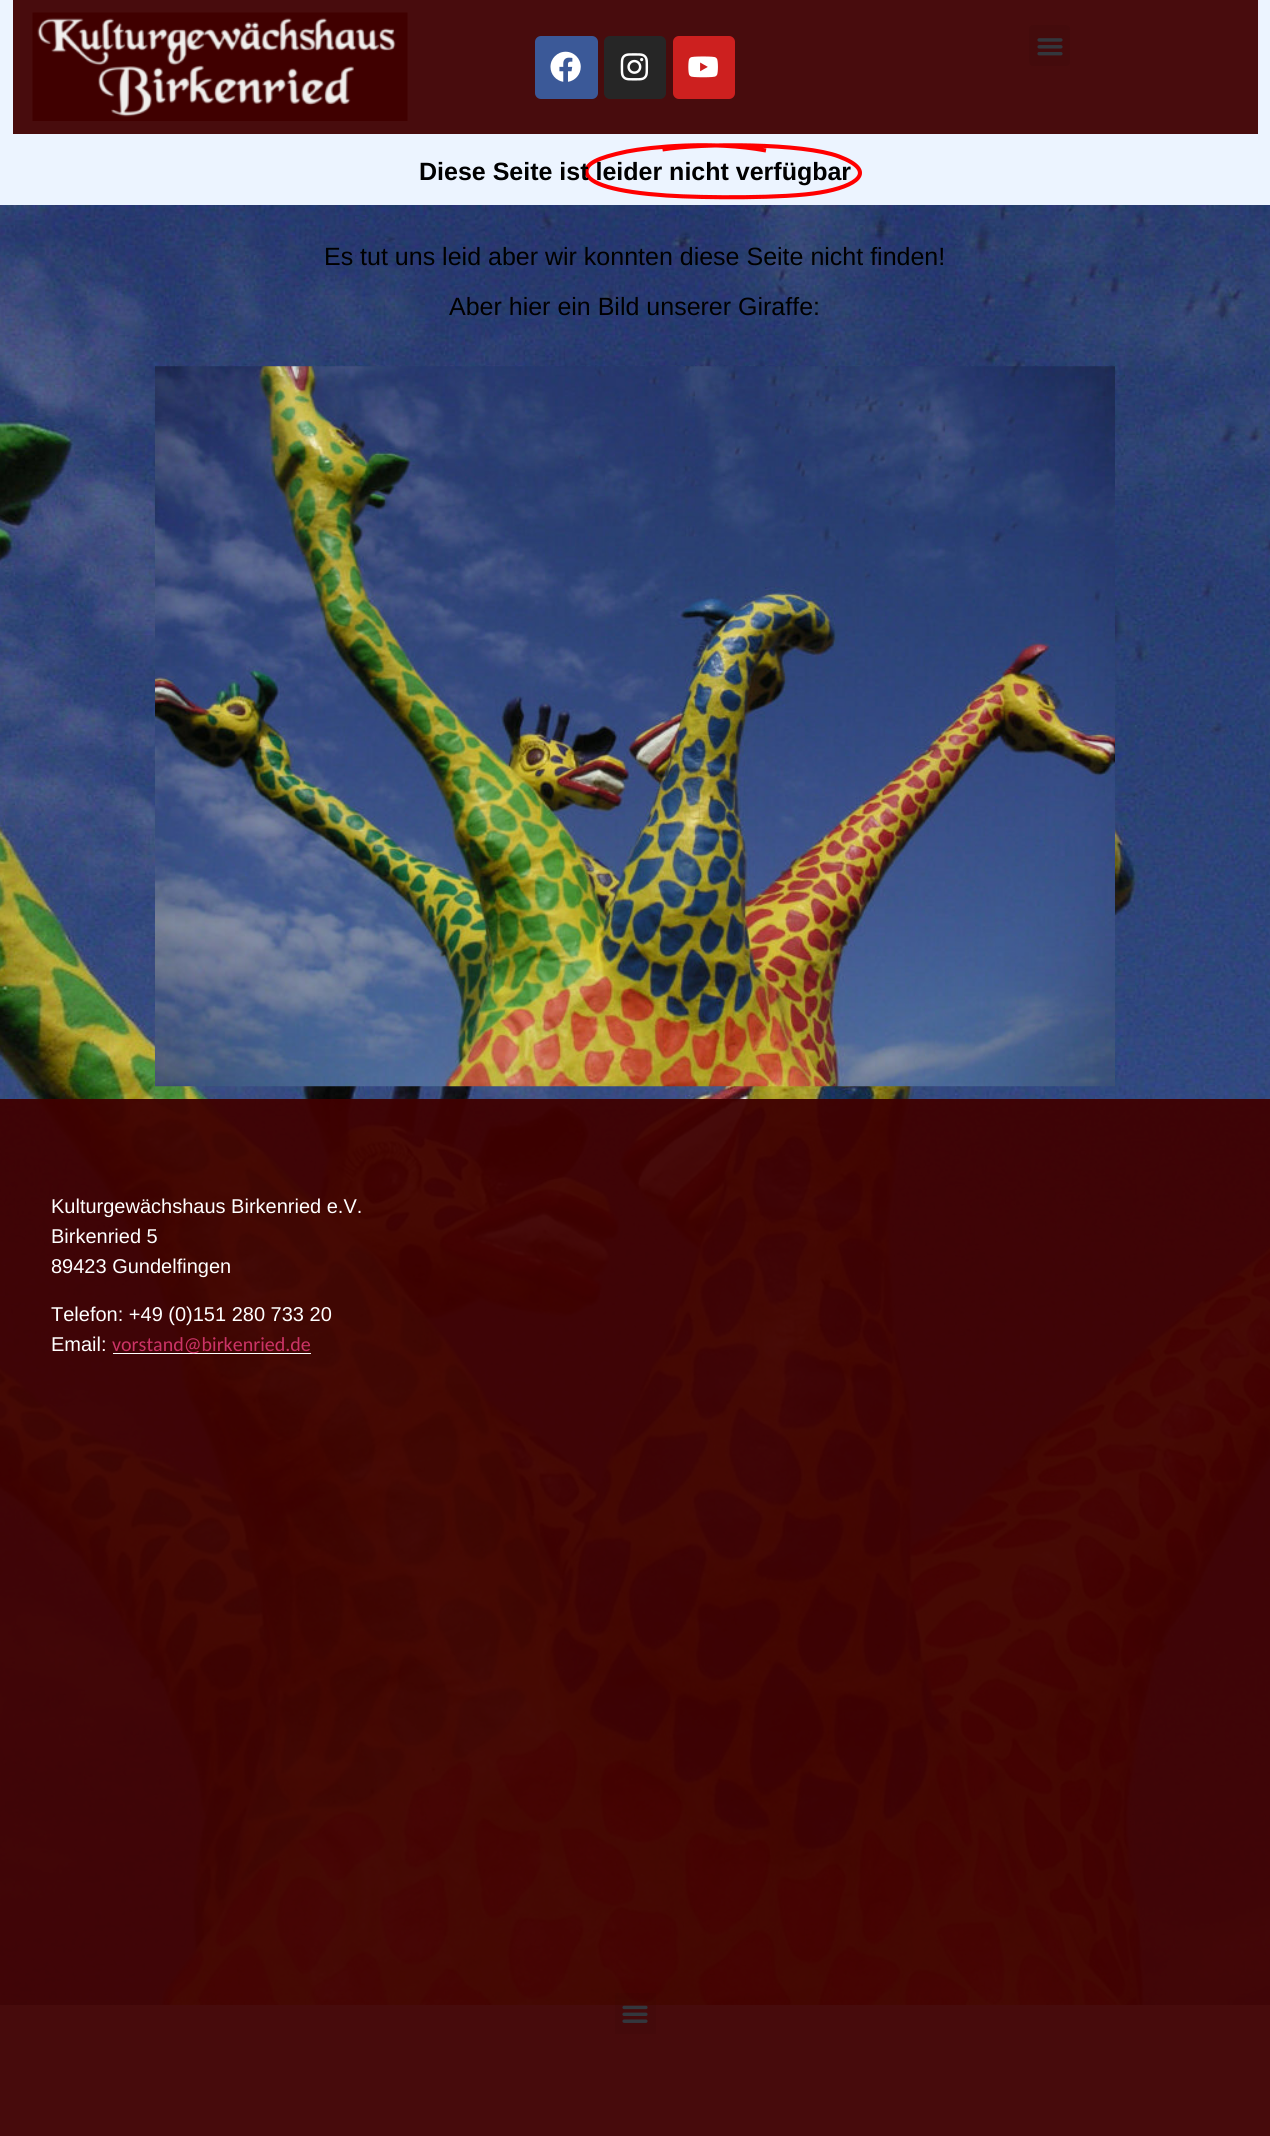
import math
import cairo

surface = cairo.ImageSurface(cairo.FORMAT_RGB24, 1270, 2136)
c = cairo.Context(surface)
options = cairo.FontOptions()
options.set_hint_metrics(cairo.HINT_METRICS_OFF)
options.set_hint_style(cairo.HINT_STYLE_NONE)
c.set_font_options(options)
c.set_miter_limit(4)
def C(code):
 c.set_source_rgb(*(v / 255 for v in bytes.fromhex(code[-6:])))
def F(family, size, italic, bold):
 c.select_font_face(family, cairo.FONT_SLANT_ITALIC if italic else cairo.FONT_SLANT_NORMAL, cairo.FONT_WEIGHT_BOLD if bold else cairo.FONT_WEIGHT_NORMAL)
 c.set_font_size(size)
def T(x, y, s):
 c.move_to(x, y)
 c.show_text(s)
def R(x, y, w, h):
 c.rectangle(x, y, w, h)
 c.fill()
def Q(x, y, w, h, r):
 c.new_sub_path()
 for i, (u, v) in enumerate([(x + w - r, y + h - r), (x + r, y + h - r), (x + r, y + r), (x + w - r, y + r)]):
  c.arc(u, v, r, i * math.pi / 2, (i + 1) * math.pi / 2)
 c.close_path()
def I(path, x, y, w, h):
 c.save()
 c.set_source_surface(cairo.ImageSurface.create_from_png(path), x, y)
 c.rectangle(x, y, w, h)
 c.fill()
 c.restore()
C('ecf4ff')
c.paint()
I('1.png',0,205,1270,1800)
C('480c0d')
R(13,0,1245,134)
I('2.png',32,12,376,109)
C('3b5998')
Q(535,36,63,63,6)
c.fill()
I('3.png',550,51,31,31)
C('262626')
Q(604,36,62,63,6)
c.fill()
I('4.png',620,53,29,28)
C('cd201f')
Q(673,36,62,63,6)
c.fill()
I('5.png',688,56,30,22)
C('440b0c')
Q(1029,25,41,41,4)
c.fill()
I('6.png',1037,38,26,18)
c.new_path()
c.move_to(766,150.5)
c.curve_to(712,140.5,650,147,627,151.5)
c.curve_to(596,158,586,164,586.5,172)
c.curve_to(587.5,184,616,192,666.5,195.5)
c.curve_to(704,198,785.5,198.5,820,192.5)
c.curve_to(856.5,186.5,878.5,171.5,839,156.5)
c.curve_to(803.5,143,701,143,662.5,149.5)
C('ff0000')
c.set_line_width(4.1)
c.stroke()
F('Liberation Sans',25,0,1)
C('000000')
T(419,180,'Diese Seite ist leider nicht verfügbar')
F('Liberation Sans',25,0,0)
T(324,265,'Es tut uns leid aber wir konnten diese Seite nicht finden!')
T(449,315,'Aber hier ein Bild unserer Giraffe:')
I('7.png',155,366,960,721)
c.set_source_rgba(0.247,0,0,0.95)
R(0,1099,1270,1037)
F('Liberation Sans',20,0,0)
C('ffffff')
T(51,1213,'Kulturgewächshaus Birkenried e.V.')
T(51,1243,'Birkenried 5')
T(51,1273,'89423 Gundelfingen')
T(51,1321,'Telefon: +49 (0)151 280 733 20')
T(51,1351,'Email:')
R(113,1353,198,1)
F('Carlito',20,0,0)
C('cc3366')
T(112,1351,'vorstand@birkenried.de')
c.set_source_rgba(0,0,0,0.05)
R(615,1993,41,41)
I('8.png',622,2005,26,18)
surface.write_to_png('o.png')
